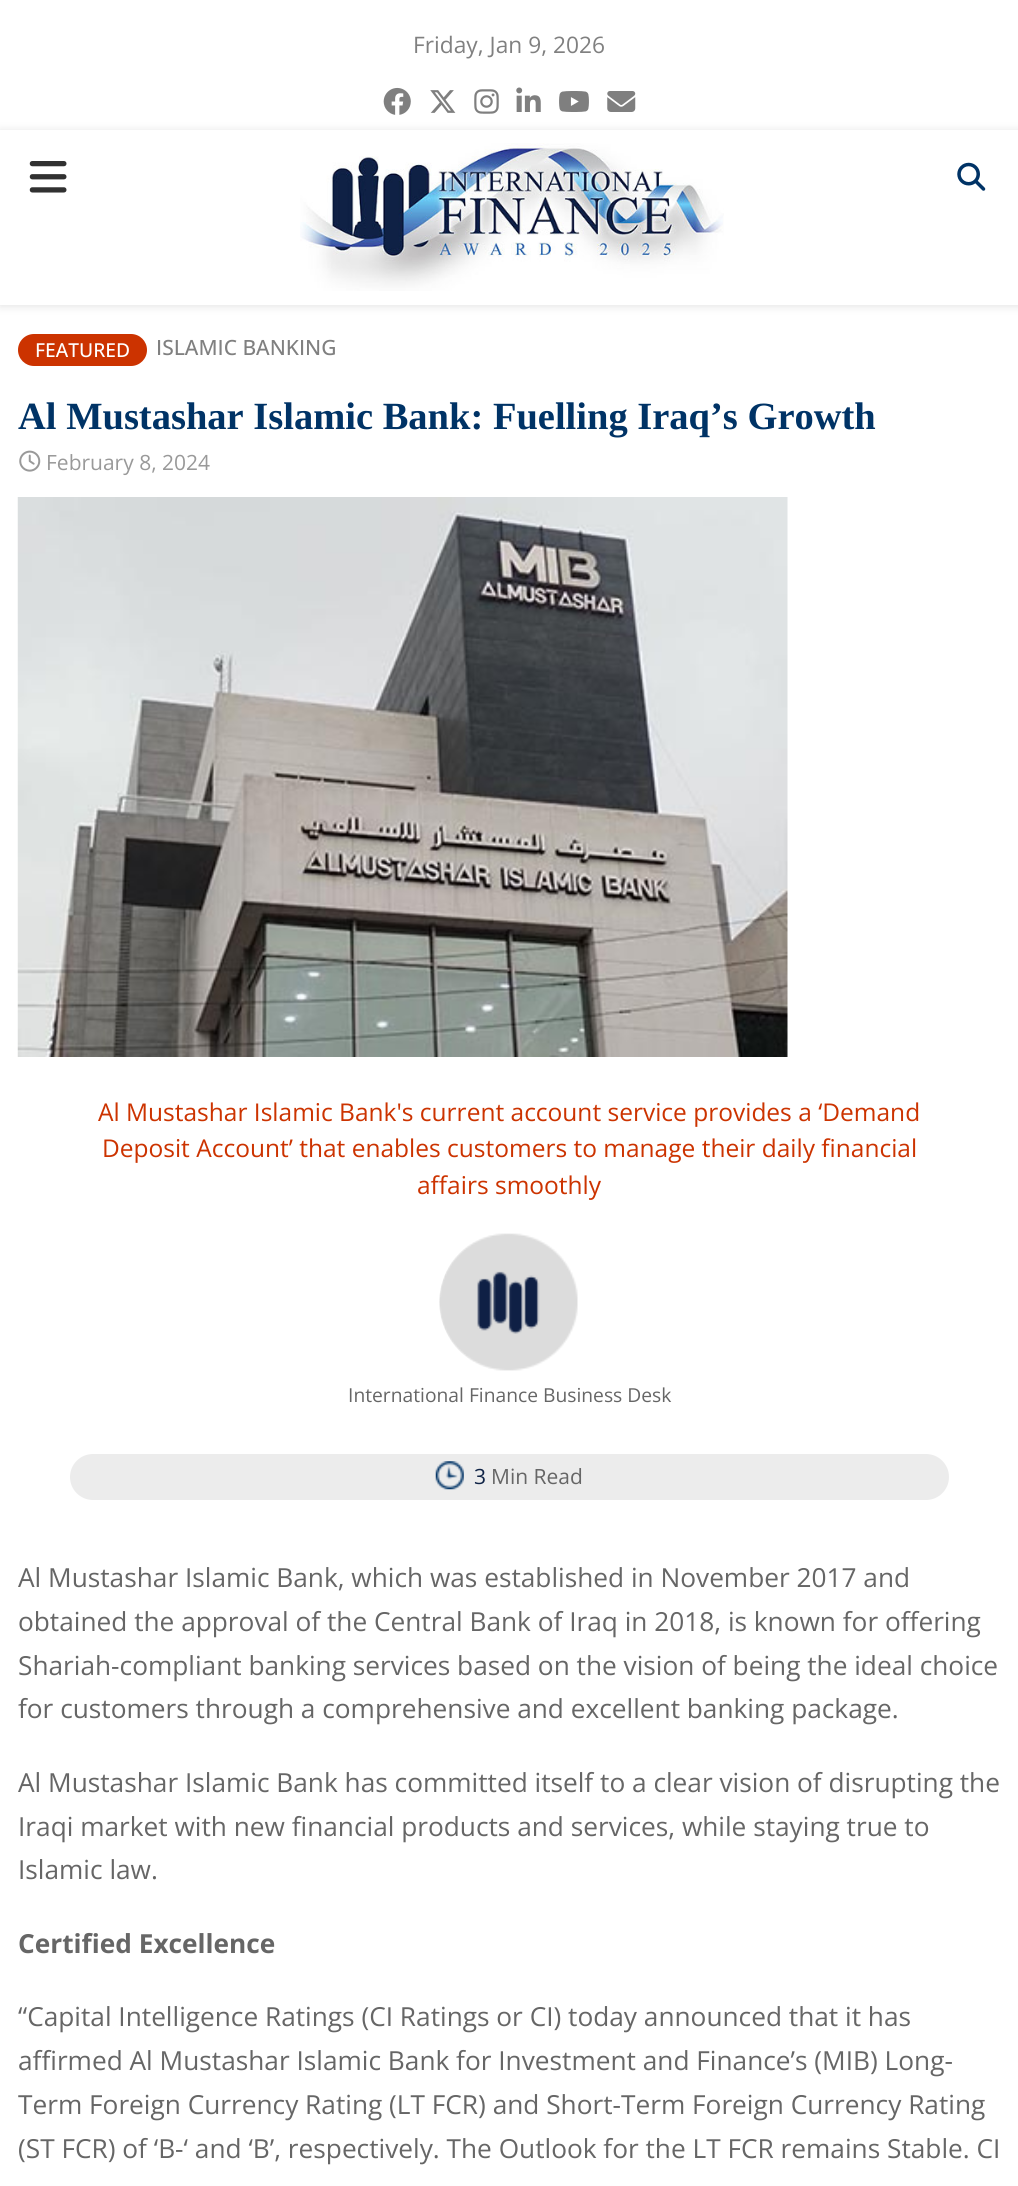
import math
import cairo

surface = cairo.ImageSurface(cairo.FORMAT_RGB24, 1018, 2186)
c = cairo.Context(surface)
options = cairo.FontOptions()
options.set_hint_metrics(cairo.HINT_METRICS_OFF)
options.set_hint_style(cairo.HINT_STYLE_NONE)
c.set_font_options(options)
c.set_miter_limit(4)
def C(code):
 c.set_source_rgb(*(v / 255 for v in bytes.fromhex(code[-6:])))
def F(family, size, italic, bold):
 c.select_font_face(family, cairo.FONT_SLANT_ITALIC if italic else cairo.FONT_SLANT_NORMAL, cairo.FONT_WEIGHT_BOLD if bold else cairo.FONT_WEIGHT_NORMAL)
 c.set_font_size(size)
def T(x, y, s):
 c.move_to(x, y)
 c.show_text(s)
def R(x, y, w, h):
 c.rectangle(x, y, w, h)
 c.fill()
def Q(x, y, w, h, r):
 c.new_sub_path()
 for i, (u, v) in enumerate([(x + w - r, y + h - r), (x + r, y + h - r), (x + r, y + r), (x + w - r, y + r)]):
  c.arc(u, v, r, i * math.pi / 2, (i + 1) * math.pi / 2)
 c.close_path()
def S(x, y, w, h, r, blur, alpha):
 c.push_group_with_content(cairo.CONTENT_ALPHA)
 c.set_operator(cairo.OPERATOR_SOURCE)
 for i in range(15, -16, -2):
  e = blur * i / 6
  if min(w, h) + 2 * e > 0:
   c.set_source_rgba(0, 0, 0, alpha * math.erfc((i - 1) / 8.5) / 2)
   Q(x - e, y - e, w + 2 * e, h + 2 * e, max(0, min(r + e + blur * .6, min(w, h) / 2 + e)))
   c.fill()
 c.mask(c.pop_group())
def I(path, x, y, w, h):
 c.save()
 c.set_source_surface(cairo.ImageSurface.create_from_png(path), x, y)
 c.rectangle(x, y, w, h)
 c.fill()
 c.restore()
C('ffffff')
c.paint()
F('Open Sans',22.75,0,0)
C('808080')
T(413,53,'Friday, Jan 9, 2026')
I('1.png',383,87,28,28)
I('2.png',430,90,26,23)
I('3.png',474,89,25,25)
I('4.png',516,87,25,25)
I('5.png',559,91,30,21)
I('6.png',607,91,29,21)
C('bebebe')
S(0,131,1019,175,0,4.5,.46)
C('ffffff')
R(0,130,1018,175)
I('7.png',29,161,38,32)
I('8.png',300,143,424,148)
I('9.png',957,162,29,29)
C('cc3300')
Q(18,334,129,32,16)
c.fill()
F('Open Sans Medium',19.25,0,0)
C('ffffff')
T(35,357,'FEATURED')
F('Open Sans Medium',21,0,0)
C('808080')
T(156,355,'ISLAMIC BANKING')
F('Liberation Serif',38.5,0,1)
C('003366')
T(18,429,'Al Mustashar Islamic Bank: Fuelling Iraq’s Growth')
I('10.png',19,450,22,22)
F('Open Sans',21,0,0)
C('999999')
T(46,470,'February 8, 2024')
I('11.png',17,497,771,560)
F('Open Sans',24.5,0,0)
C('cc3300')
T(98,1121,'Al Mustashar Islamic Bank\'s current account service provides a ‘Demand')
T(102,1157,'Deposit Account’ that enables customers to manage their daily financial')
T(417,1194,'affairs smoothly')
I('12.png',439,1233,139,138)
F('Open Sans',19.25,0,0)
C('666666')
T(348,1402,'International Finance Business Desk')
C('ececec')
Q(70,1454,879,46,23)
c.fill()
I('13.png',435,1461,29,29)
F('Open Sans',21,0,0)
C('0e2245')
T(474,1484,'3')
C('666666')
T(491,1484,'Min Read')
F('Open Sans',26.25,0,0)
T(18,1587,'Al Mustashar Islamic Bank, which was established in November 2017 and')
T(18,1631,'obtained the approval of the Central Bank of Iraq in 2018, is known for offering')
T(18,1675,'Shariah-compliant banking services based on the vision of being the ideal choice')
T(18,1718,'for customers through a comprehensive and excellent banking package.')
T(18,1792,'Al Mustashar Islamic Bank has committed itself to a clear vision of disrupting the')
T(18,1836,'Iraqi market with new financial products and services, while staying true to')
T(18,1879,'Islamic law.')
F('Open Sans',26.25,0,1)
T(18,1953,'Certified Excellence')
F('Open Sans',26.25,0,0)
T(18,2026,'“Capital Intelligence Ratings (CI Ratings or CI) today announced that it has')
T(18,2070,'affirmed Al Mustashar Islamic Bank for Investment and Finance’s (MIB) Long-')
T(18,2114,'Term Foreign Currency Rating (LT FCR) and Short-Term Foreign Currency Rating')
T(18,2158,'(ST FCR) of ‘B-‘ and ‘B’, respectively. The Outlook for the LT FCR remains Stable. CI')
surface.write_to_png('o.png')
